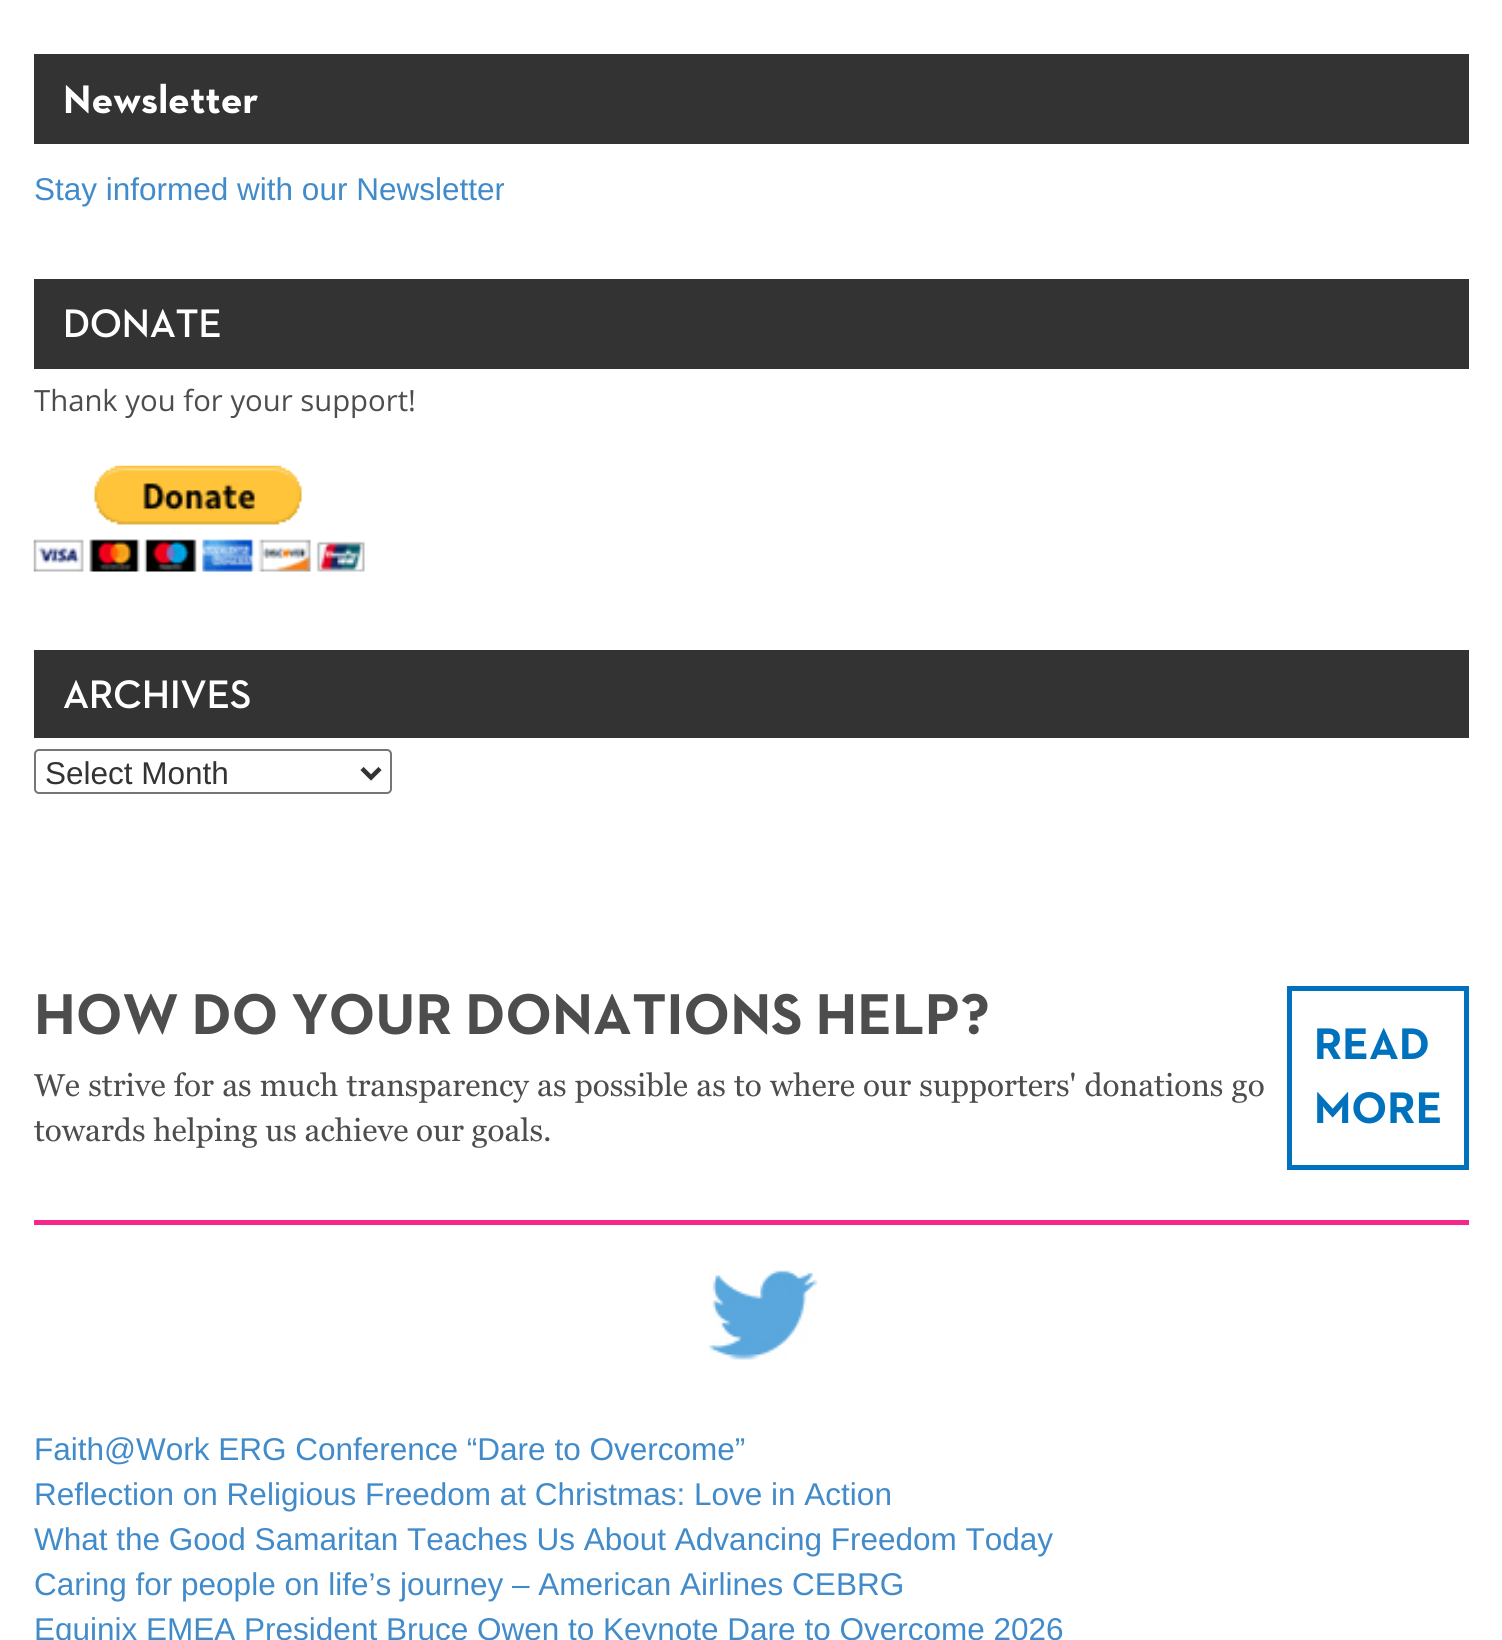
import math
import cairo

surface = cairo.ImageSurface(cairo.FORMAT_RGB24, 1502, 1640)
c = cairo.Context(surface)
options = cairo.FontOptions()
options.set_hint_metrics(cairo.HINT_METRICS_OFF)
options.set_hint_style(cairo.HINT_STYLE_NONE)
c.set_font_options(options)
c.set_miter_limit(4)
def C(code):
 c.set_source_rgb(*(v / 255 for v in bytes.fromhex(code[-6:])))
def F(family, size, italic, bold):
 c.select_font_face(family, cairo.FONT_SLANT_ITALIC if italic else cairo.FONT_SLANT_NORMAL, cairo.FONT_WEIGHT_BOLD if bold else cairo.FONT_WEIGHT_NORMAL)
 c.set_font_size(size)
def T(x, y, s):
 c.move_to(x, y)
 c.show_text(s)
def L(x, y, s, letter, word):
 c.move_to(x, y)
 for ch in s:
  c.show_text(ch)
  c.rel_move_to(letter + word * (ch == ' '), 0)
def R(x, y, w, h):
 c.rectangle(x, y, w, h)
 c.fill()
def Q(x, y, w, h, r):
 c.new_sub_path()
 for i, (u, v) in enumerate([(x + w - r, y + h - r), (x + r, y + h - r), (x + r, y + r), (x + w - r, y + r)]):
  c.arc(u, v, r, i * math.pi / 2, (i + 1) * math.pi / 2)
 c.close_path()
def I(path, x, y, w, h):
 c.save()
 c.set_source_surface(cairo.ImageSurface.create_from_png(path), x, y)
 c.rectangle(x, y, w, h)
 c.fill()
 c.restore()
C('ffffff')
c.paint()
C('333333')
R(34,54,1435,90)
F('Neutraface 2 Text',40.5,0,1)
C('ffffff')
T(63,113,'Newsletter')
F('Liberation Sans',31.5,0,0)
C('428bca')
T(34,200,'Stay informed with our Newsletter')
C('333333')
R(34,279,1435,90)
F('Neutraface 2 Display',40.5,0,1)
C('ffffff')
T(63,337,'DONATE')
F('Open Sans',29.25,0,0)
C('4d4d4d')
T(34,411,'Thank you for your support!')
I('1.png',33,465,332,107)
C('333333')
R(34,650,1435,88)
F('Neutraface 2 Display',40.5,0,1)
C('ffffff')
T(63,708,'ARCHIVES')
Q(35,750,356,43,4)
C('767676')
c.stroke()
c.new_path()
c.move_to(362,768.5)
c.line_to(371,777.5)
c.line_to(380,768.5)
C('333333')
c.set_line_width(4.5)
c.stroke()
F('Liberation Sans',31.5,0,0)
T(45,784,'Select Month')
F('Neutraface 2 Text',58.5,0,1)
C('4d4d4d')
T(34,1034,'HOW DO YOUR DONATIONS HELP?')
F('Georgia',31.5,0,0)
L(34,1096,'We strive for as much transparency as possible as to where our supporters\' donations go',0,.6)
T(34,1141,'towards helping us achieve our goals.')
c.rectangle(1289.5,988.5,177,179)
C('0071bc')
c.set_line_width(5)
c.stroke()
F('Neutraface 2 Text',45,0,1)
T(1314,1059,'READ')
T(1314,1123,'MORE')
I('2.png',708,1270,110,90)
C('f5278b')
R(34,1220,1435,5)
F('Liberation Sans',31.5,0,0)
C('428bca')
T(34,1460,'Faith@Work ERG Conference “Dare to Overcome”')
T(34,1505,'Reflection on Religious Freedom at Christmas: Love in Action')
T(34,1550,'What the Good Samaritan Teaches Us About Advancing Freedom Today')
T(34,1595,'Caring for people on life’s journey – American Airlines CEBRG')
T(34,1640,'Equinix EMEA President Bruce Owen to Keynote Dare to Overcome 2026')
surface.write_to_png('o.png')
